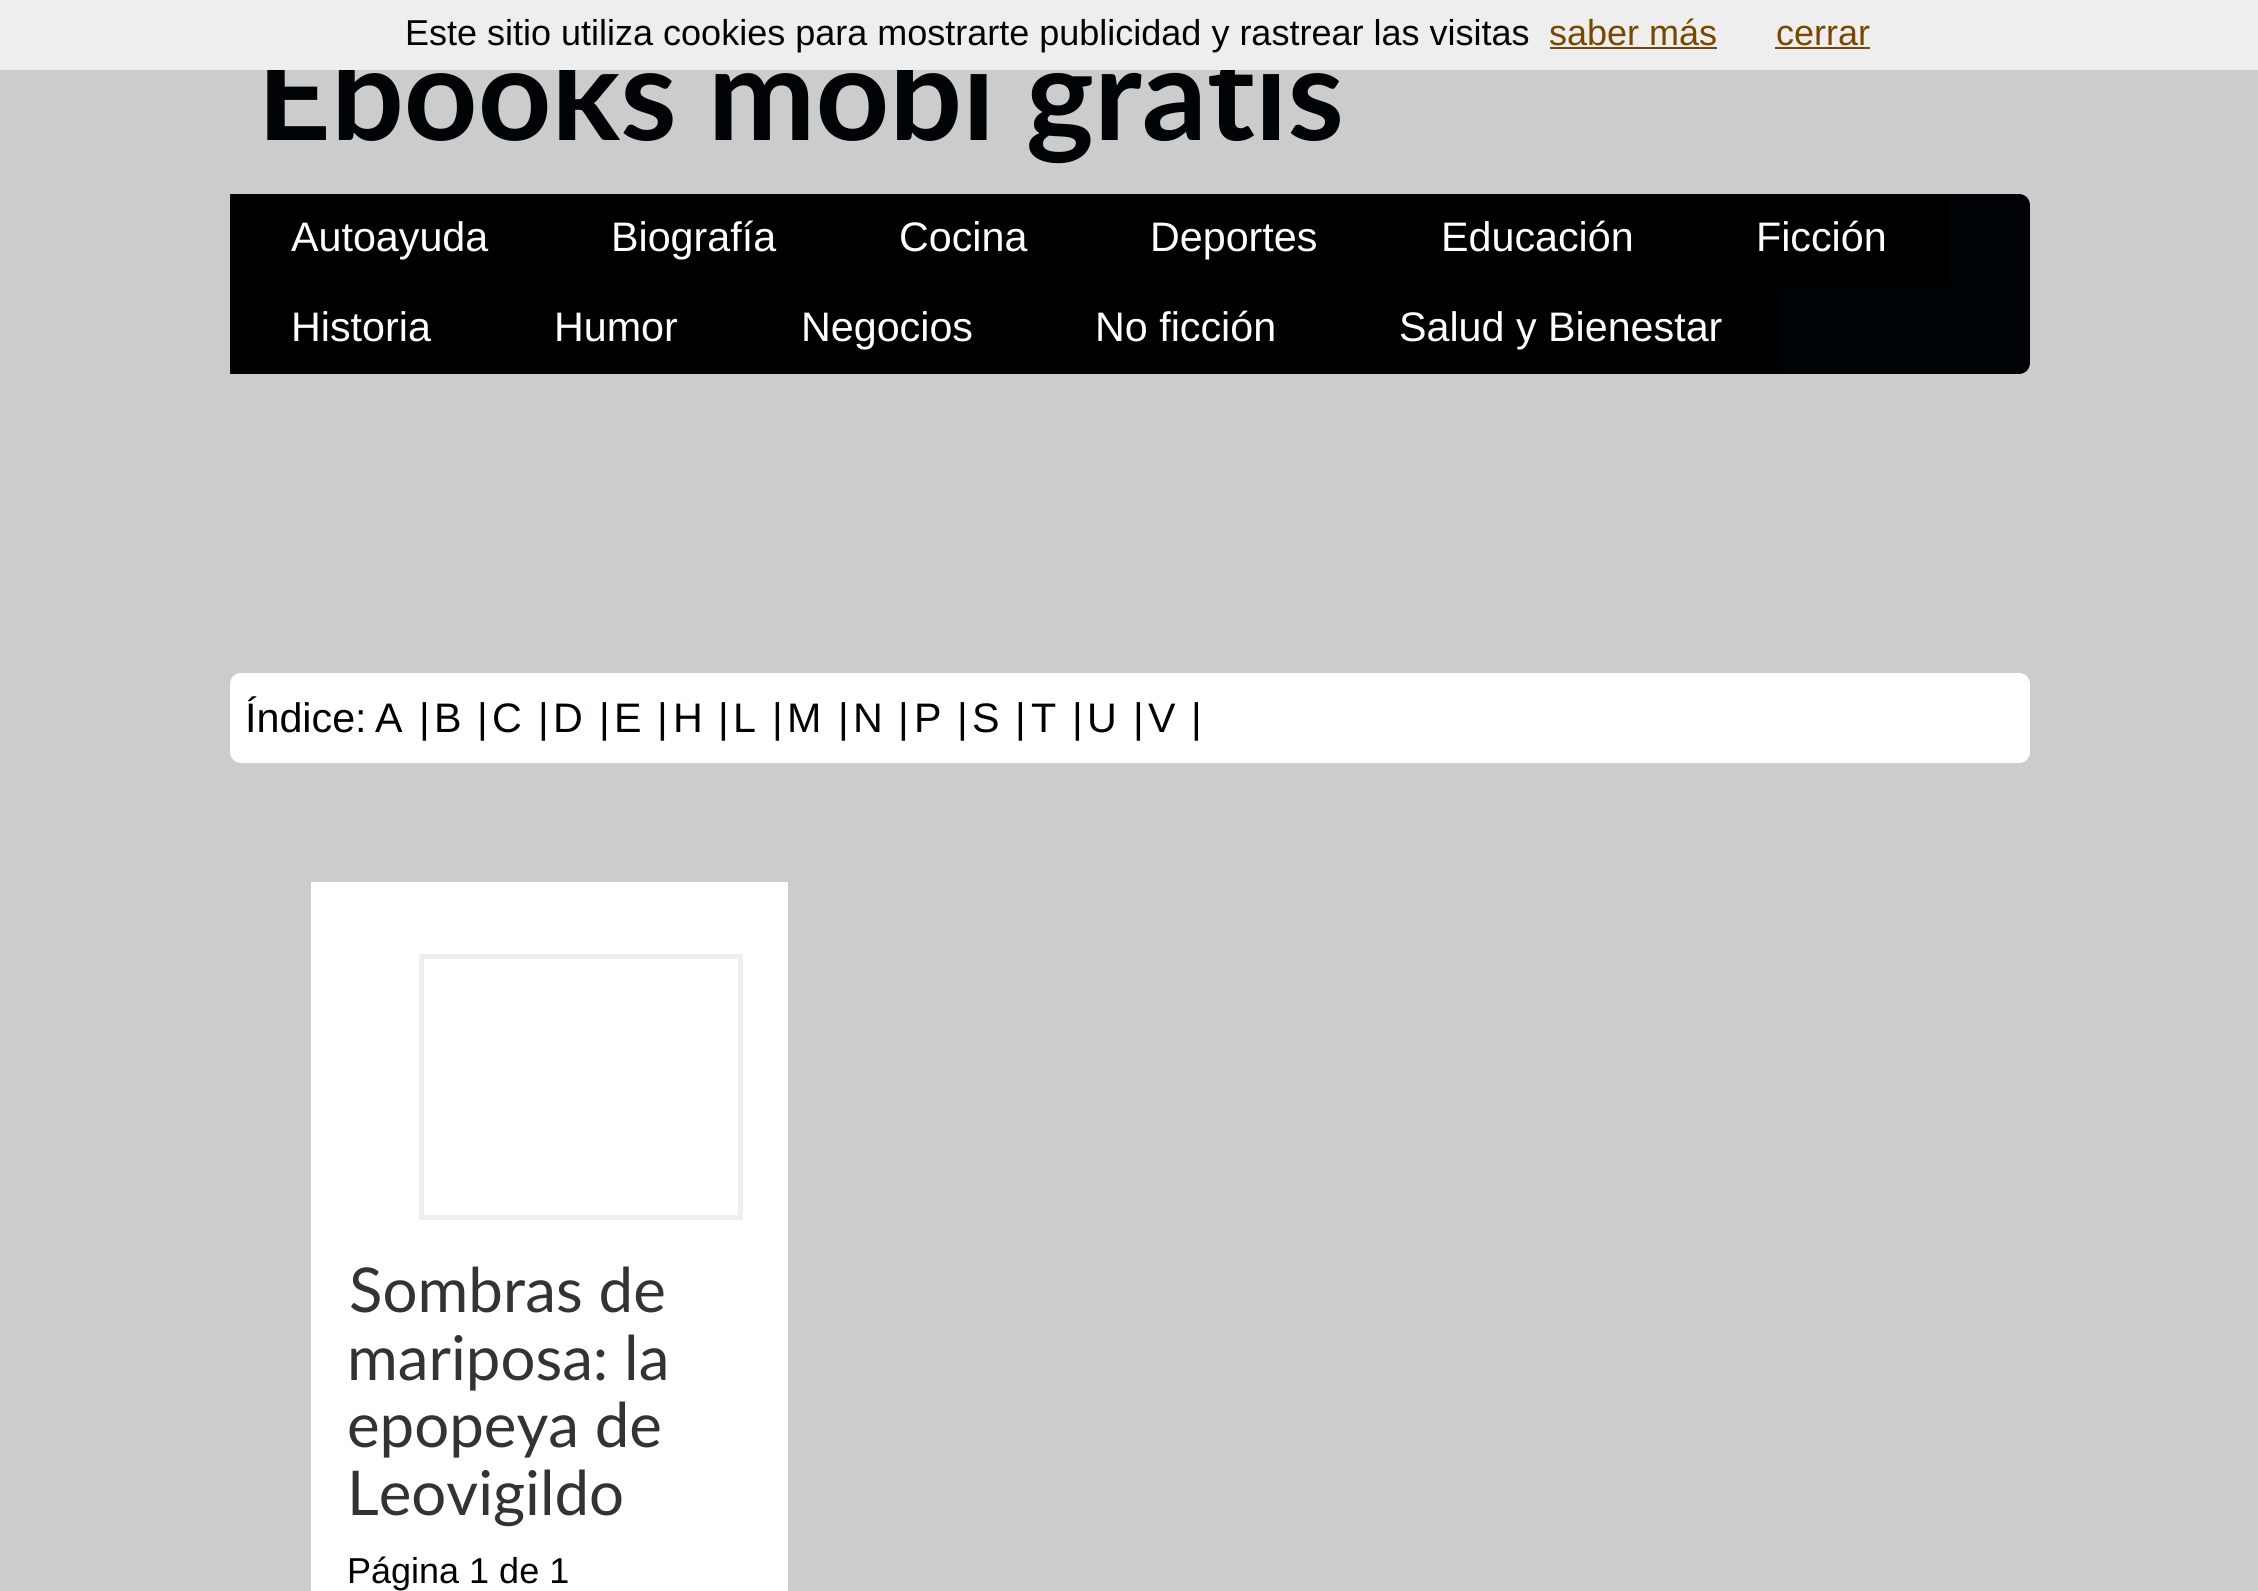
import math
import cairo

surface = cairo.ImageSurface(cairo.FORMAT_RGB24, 2258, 1591)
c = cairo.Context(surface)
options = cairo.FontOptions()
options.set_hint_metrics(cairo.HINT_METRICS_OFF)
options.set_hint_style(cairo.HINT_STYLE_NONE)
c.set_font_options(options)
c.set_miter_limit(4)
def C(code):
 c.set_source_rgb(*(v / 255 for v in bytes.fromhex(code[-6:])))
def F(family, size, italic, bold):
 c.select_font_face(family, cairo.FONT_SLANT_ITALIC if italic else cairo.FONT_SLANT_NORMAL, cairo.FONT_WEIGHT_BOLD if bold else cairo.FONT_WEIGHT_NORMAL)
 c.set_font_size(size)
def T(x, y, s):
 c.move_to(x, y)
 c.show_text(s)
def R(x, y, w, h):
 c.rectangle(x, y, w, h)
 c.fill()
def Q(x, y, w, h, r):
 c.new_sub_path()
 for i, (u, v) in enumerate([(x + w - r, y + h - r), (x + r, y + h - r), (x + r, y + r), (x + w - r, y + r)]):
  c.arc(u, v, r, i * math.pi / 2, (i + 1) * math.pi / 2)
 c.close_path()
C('cccccc')
c.paint()
F('Lato',128.5,0,1)
C('000305')
T(257,140,'Ebooks mobi gratis')
C('eeeeee')
R(0,0,2258,70)
F('Liberation Sans',36,0,0)
C('000305')
T(405,45,'Este sitio utiliza cookies para mostrarte publicidad y rastrear las visitas')
C('7a4700')
T(1549,45,'saber más')
R(1550,47,167,2)
T(1776,45,'cerrar')
R(1775,47,95,2)
C('000305')
Q(230,194,1800,180,11)
c.fill()
C('000000')
R(230,194,1719,90)
F('Liberation Sans',41.25,0,0)
C('ffffff')
T(291,251,'Autoayuda')
T(611,251,'Biografía')
T(899,251,'Cocina')
T(1150,251,'Deportes')
T(1441,251,'Educación')
T(1756,251,'Ficción')
C('000000')
R(230,284,1552,90)
C('ffffff')
T(291,341,'Historia')
T(554,341,'Humor')
T(801,341,'Negocios')
T(1095,341,'No ficción')
T(1399,341,'Salud y Bienestar')
Q(230,673,1800,90,11)
c.fill()
C('000305')
T(245,732,'Índice:')
T(375,732,'A')
T(419,732,'|')
T(434,732,'B')
T(477,732,'|')
T(492,732,'C')
T(538,732,'|')
T(553,732,'D')
T(599,732,'|')
T(614,732,'E')
T(657,732,'|')
T(673,732,'H')
T(718,732,'|')
T(733,732,'L')
T(772,732,'|')
T(787,732,'M')
T(838,732,'|')
T(853,732,'N')
T(898,732,'|')
T(914,732,'P')
T(957,732,'|')
T(972,732,'S')
T(1015,732,'|')
T(1031,732,'T')
T(1072,732,'|')
T(1087,732,'U')
T(1133,732,'|')
T(1148,732,'V')
T(1191,732,'|')
C('ffffff')
R(311,882,477,709)
c.rectangle(421.5,956.5,319,261)
C('eeeeee')
c.set_line_width(5)
c.stroke()
F('Lato',61.75,0,0)
C('333333')
T(349,1312,'Sombras de')
T(347,1380,'mariposa: la')
T(347,1447,'epopeya de')
T(347,1515,'Leovigildo')
F('Liberation Sans',36,0,0)
C('000305')
T(347,1583,'Página 1 de 1')
surface.write_to_png('o.png')
